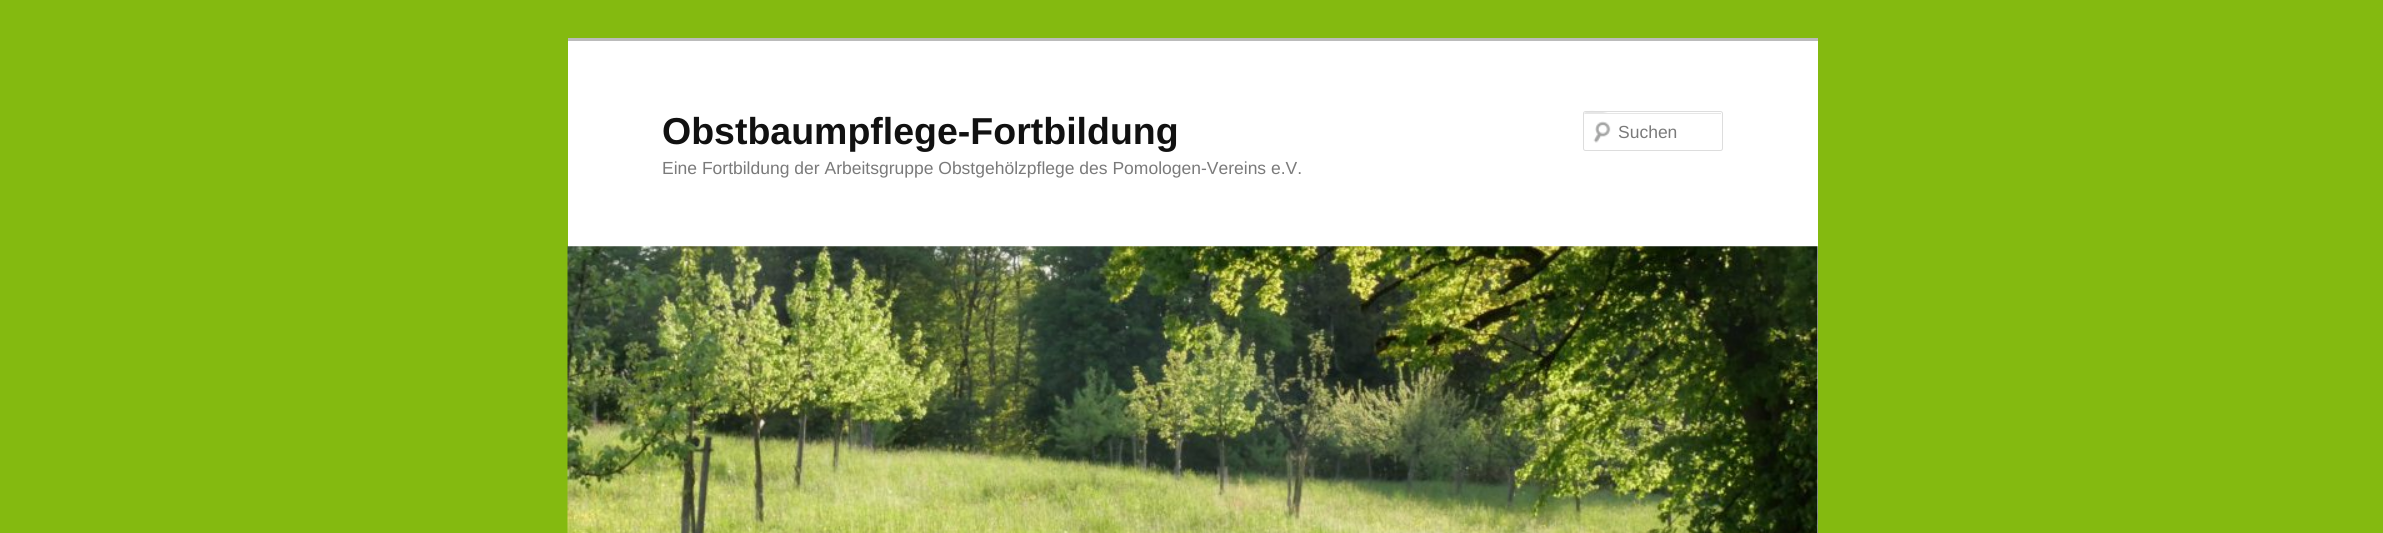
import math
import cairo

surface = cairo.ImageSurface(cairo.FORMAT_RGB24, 2383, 533)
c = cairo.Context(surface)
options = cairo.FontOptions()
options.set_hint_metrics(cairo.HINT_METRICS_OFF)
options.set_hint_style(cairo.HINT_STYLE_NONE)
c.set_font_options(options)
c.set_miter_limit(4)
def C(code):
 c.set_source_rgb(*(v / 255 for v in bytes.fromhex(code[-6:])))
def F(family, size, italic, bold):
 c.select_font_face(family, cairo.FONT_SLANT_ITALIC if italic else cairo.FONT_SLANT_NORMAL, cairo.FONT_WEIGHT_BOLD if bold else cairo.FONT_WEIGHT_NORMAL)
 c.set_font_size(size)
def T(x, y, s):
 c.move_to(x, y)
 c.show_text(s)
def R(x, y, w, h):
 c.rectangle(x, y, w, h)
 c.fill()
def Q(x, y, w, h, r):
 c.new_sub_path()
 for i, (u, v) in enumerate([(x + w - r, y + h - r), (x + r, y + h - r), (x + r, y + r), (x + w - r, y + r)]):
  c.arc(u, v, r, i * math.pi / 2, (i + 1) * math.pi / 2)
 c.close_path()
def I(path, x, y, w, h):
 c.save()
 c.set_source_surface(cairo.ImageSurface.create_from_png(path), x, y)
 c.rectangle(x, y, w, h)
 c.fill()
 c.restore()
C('84ba10')
c.paint()
C('ffffff')
R(568,41,1250,492)
C('bbbbbb')
R(568,38,1250,3)
F('Liberation Sans',37.5,0,1)
C('111111')
T(662,144,'Obstbaumpflege-Fortbildung')
F('Liberation Sans',17.5,0,0)
C('7a7a7a')
T(662,174,'Eine Fortbildung der Arbeitsgruppe Obstgehölzpflege des Pomologen-Vereins e.V.')
I('1.png',1593,121,18,22)
C('e6e6e6')
c.new_path()
c.move_to(1585,114)
c.line_to(1720,114)
c.curve_to(1721,114,1721,114,1721,115)
c.line_to(1721,113)
c.line_to(1608,113)
c.curve_to(1607,113,1584,107,1584,115)
c.curve_to(1584,114,1584,114,1585,114)
c.close_path()
c.fill()
Q(1583.5,111.5,139,39,2)
C('dddddd')
c.set_line_width(1)
c.stroke()
C('7a7a7a')
T(1618,138,'Suchen')
I('2.png',567,246,1251,287)
surface.write_to_png('o.png')
